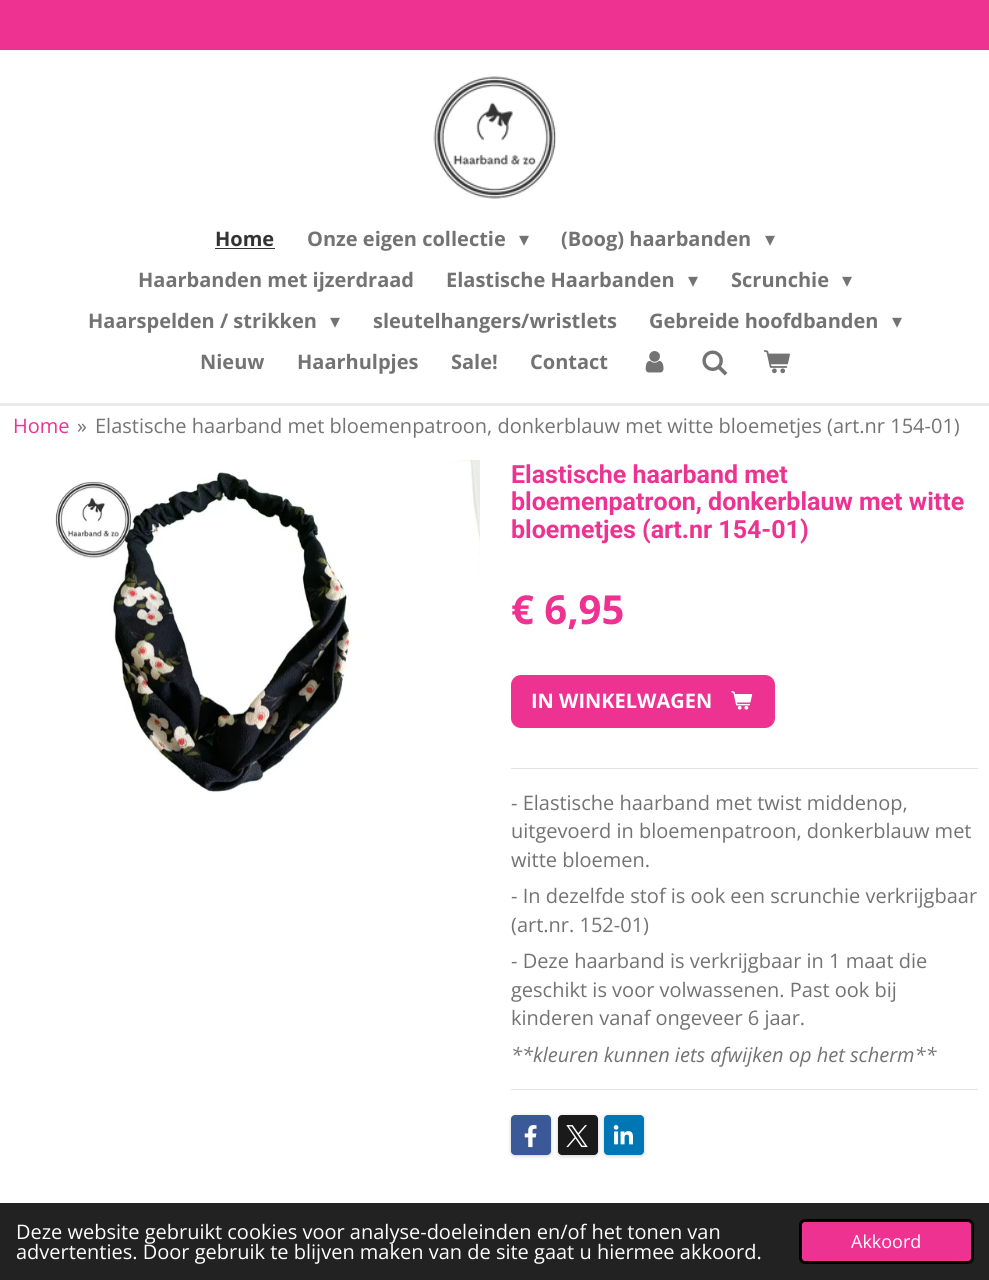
import math
import cairo

surface = cairo.ImageSurface(cairo.FORMAT_RGB24, 989, 1280)
c = cairo.Context(surface)
options = cairo.FontOptions()
options.set_hint_metrics(cairo.HINT_METRICS_OFF)
options.set_hint_style(cairo.HINT_STYLE_NONE)
c.set_font_options(options)
c.set_miter_limit(4)
def C(code):
 c.set_source_rgb(*(v / 255 for v in bytes.fromhex(code[-6:])))
def F(family, size, italic, bold):
 c.select_font_face(family, cairo.FONT_SLANT_ITALIC if italic else cairo.FONT_SLANT_NORMAL, cairo.FONT_WEIGHT_BOLD if bold else cairo.FONT_WEIGHT_NORMAL)
 c.set_font_size(size)
def T(x, y, s):
 c.move_to(x, y)
 c.show_text(s)
def R(x, y, w, h):
 c.rectangle(x, y, w, h)
 c.fill()
def Q(x, y, w, h, r):
 c.new_sub_path()
 for i, (u, v) in enumerate([(x + w - r, y + h - r), (x + r, y + h - r), (x + r, y + r), (x + w - r, y + r)]):
  c.arc(u, v, r, i * math.pi / 2, (i + 1) * math.pi / 2)
 c.close_path()
def S(x, y, w, h, r, blur, alpha):
 c.push_group_with_content(cairo.CONTENT_ALPHA)
 c.set_operator(cairo.OPERATOR_SOURCE)
 for i in range(15, -16, -2):
  e = blur * i / 6
  if min(w, h) + 2 * e > 0:
   c.set_source_rgba(0, 0, 0, alpha * math.erfc((i - 1) / 8.5) / 2)
   Q(x - e, y - e, w + 2 * e, h + 2 * e, max(0, min(r + e + blur * .6, min(w, h) / 2 + e)))
   c.fill()
 c.mask(c.pop_group())
def I(path, x, y, w, h):
 c.save()
 c.set_source_surface(cairo.ImageSurface.create_from_png(path), x, y)
 c.rectangle(x, y, w, h)
 c.fill()
 c.restore()
C('ffffff')
c.paint()
C('ee3291')
R(0,0,989,50)
I('1.png',433,76,124,123)
F('Open Sans',20,0,1)
C('333333')
T(215,246,'Home')
R(215,248,60,1)
C('737373')
T(307,246,'Onze eigen collectie')
F('DejaVu Sans',20,0,0)
T(519,246,'▾')
F('Open Sans',20,0,1)
T(561,246,'(Boog) haarbanden')
F('DejaVu Sans',20,0,0)
T(765,246,'▾')
F('Open Sans',20,0,1)
T(138,287,'Haarbanden met ijzerdraad')
T(446,287,'Elastische Haarbanden')
F('DejaVu Sans',20,0,0)
T(688,287,'▾')
F('Open Sans',20,0,1)
T(731,287,'Scrunchie')
F('DejaVu Sans',20,0,0)
T(842,287,'▾')
F('Open Sans',20,0,1)
T(88,328,'Haarspelden / strikken')
F('DejaVu Sans',20,0,0)
T(330,328,'▾')
F('Open Sans',20,0,1)
T(373,328,'sleutelhangers/wristlets')
T(649,328,'Gebreide hoofdbanden')
F('DejaVu Sans',20,0,0)
T(892,328,'▾')
F('Open Sans',20,0,1)
T(200,369,'Nieuw')
T(297,369,'Haarhulpjes')
T(451,369,'Sale!')
T(530,369,'Contact')
I('2.png',645,351,19,22)
I('3.png',702,350,26,26)
I('4.png',763,350,27,24)
C('eaeaea')
R(0,403,989,3)
F('Open Sans',20,0,0)
C('ee3291')
T(13,433,'Home')
C('737373')
T(77,433,'»')
T(95,433,'Elastische haarband met bloemenpatroon, donkerblauw met witte bloemetjes (art.nr 154-01)')
I('5.png',55,460,425,334)
F('Roboto',25,0,1)
C('ee3291')
T(511,483,'Elastische haarband met')
T(511,510,'bloemenpatroon, donkerblauw met witte')
T(511,538,'bloemetjes (art.nr 154-01)')
F('Open Sans',40,0,1)
T(511,624,'€ 6,95')
Q(511,675,264,53,10)
c.fill()
F('Open Sans',20,0,1)
C('ffffff')
T(531,708,'IN WINKELWAGEN')
I('6.png',731,691,22,19)
C('e3e3e3')
R(511,768,467,1)
F('Open Sans',20,0,0)
C('737373')
T(511,810,'- Elastische haarband met twist middenop,')
T(511,838,'uitgevoerd in bloemenpatroon, donkerblauw met')
T(511,867,'witte bloemen.')
T(511,903,'- In dezelfde stof is ook een scrunchie verkrijgbaar')
T(511,932,'(art.nr. 152-01)')
T(511,968,'- Deze haarband is verkrijgbaar in 1 maat die')
T(511,997,'geschikt is voor volwassenen. Past ook bij')
T(511,1025,'kinderen vanaf ongeveer 6 jaar.')
F('Open Sans',20,1,0)
T(511,1062,'**kleuren kunnen iets afwijken op het scherm**')
C('e3e3e3')
R(511,1089,467,1)
C('000000')
S(511,1116,40,40,4,2,.2)
C('3b5998')
Q(511,1115,40,40,4)
c.fill()
I('7.png',524,1125,13,23)
C('000000')
S(558,1116,40,40,4,2,.2)
C('1a1a1a')
Q(558,1115,40,40,4)
c.fill()
I('8.png',566,1125,22,23)
C('000000')
S(604,1116,40,40,4,2,.2)
C('0077b5')
Q(604,1115,40,40,4)
c.fill()
I('9.png',613,1125,20,20)
C('222222')
R(0,1203,989,77)
F('Open Sans',20,0,0)
C('ffffff')
T(16,1239,'Deze website gebruikt cookies voor analyse-doeleinden en/of het tonen van')
T(16,1259,'advertenties. Door gebruik te blijven maken van de site gaat u hiermee akkoord.')
C('ee3291')
Q(800.5,1220.5,172,42,4.5)
c.fill_preserve()
C('000000')
c.set_line_width(3)
c.stroke()
F('Open Sans',18,0,0)
C('ffffff')
T(851,1248,'Akkoord')
surface.write_to_png('o.png')
